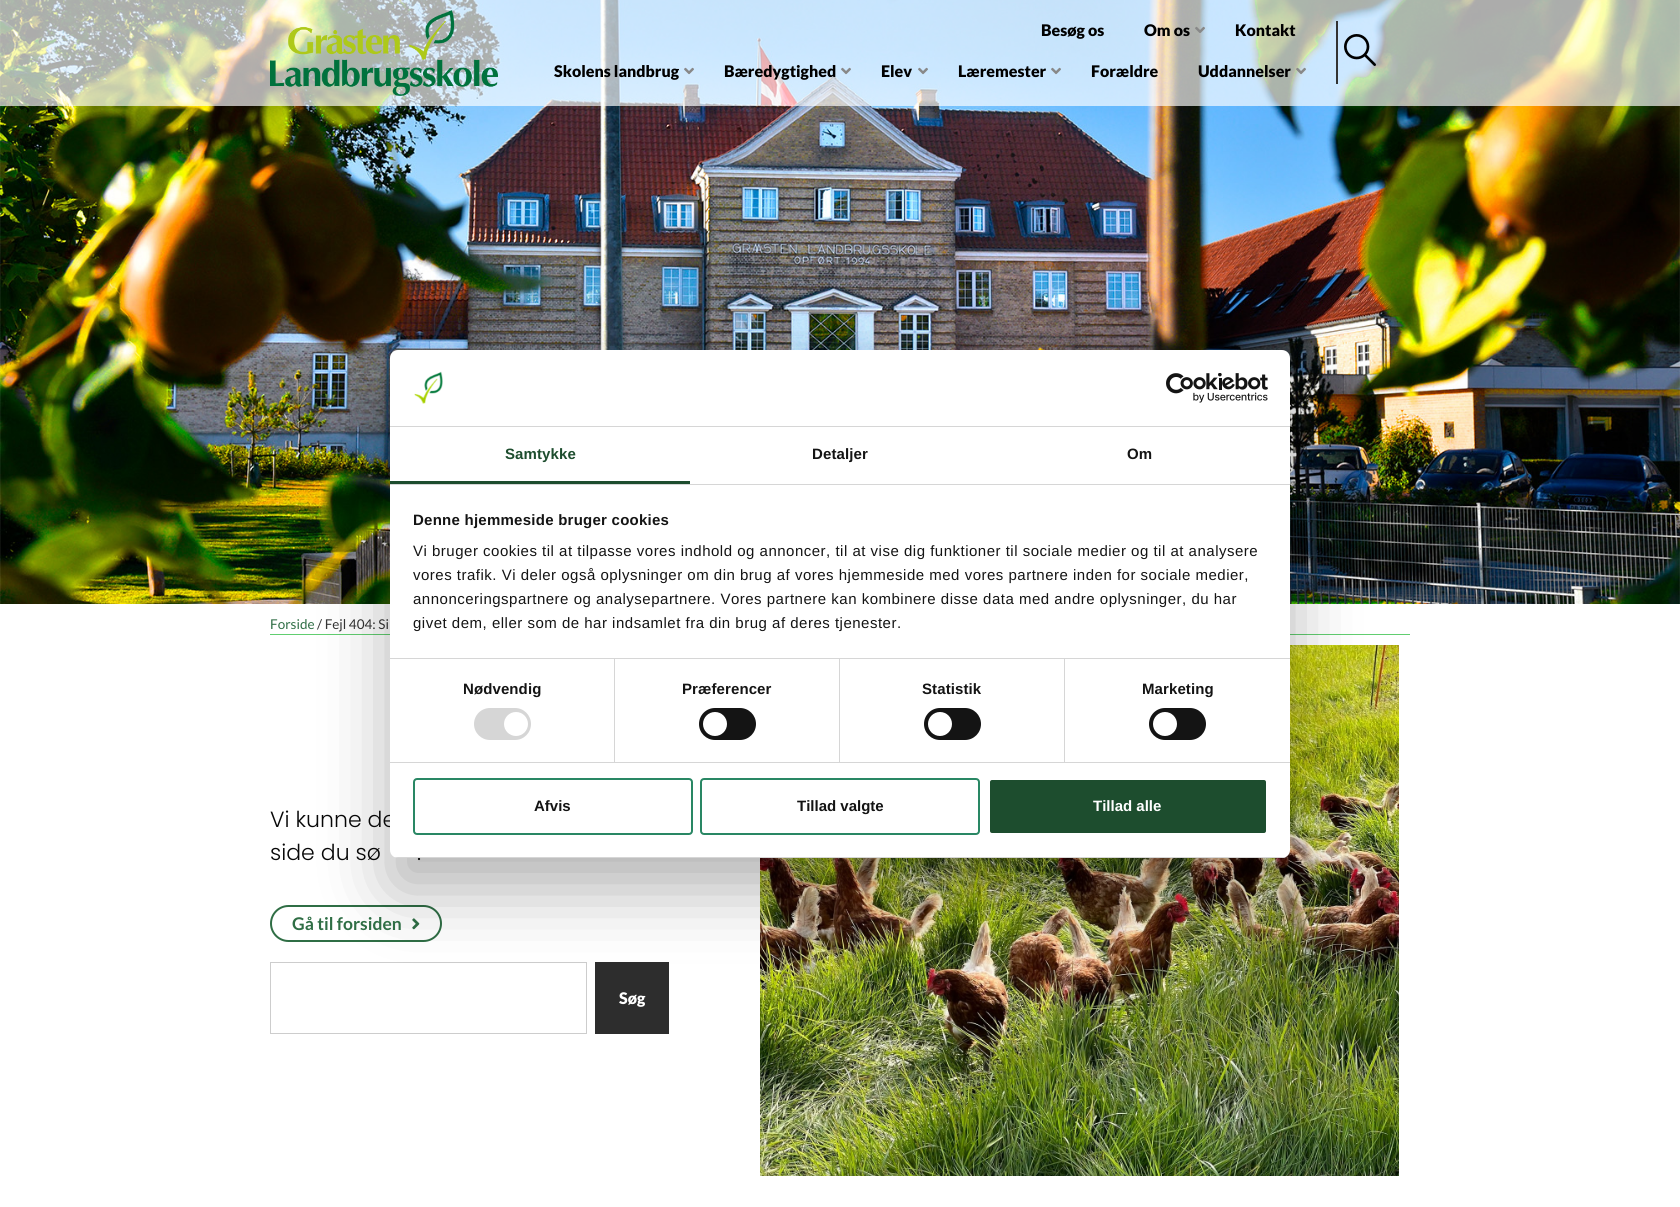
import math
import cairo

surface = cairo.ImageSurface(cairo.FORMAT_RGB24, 1680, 1207)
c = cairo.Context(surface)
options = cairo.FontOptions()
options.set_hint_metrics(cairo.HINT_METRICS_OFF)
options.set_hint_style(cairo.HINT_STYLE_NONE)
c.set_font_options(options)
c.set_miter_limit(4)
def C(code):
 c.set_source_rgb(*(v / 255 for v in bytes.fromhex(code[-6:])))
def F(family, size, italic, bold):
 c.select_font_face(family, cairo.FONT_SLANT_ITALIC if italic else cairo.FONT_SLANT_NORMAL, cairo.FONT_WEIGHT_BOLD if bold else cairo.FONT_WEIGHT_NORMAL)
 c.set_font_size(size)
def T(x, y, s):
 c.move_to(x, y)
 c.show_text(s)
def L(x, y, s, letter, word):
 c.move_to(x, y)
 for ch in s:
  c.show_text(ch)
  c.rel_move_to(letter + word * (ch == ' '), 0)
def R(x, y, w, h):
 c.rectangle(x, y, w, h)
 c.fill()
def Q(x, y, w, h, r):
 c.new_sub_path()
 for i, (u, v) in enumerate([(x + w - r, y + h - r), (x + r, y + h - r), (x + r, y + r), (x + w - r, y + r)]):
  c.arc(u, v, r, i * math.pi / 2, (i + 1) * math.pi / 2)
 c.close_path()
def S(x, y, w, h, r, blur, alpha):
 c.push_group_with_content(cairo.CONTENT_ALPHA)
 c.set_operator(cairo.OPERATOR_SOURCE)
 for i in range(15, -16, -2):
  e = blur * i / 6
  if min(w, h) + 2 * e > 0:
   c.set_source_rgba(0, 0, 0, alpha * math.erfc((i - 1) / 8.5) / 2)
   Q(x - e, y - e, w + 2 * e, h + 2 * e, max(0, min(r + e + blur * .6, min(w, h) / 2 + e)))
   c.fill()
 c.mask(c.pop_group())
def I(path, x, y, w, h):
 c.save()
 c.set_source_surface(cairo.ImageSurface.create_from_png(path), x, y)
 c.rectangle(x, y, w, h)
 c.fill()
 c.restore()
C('ffffff')
c.paint()
I('1.png',0,0,1680,604)
c.set_source_rgba(1,1,1,0.67)
R(0,0,1680,106)
I('2.png',270,10,228,86)
F('Lato Black',16,0,0)
C('000000')
T(1041,36,'Besøg os')
T(1144,36,'Om os')
I('3.png',1195,26,10,7)
T(1235,36,'Kontakt')
T(554,77,'Skolens landbrug')
I('4.png',684,67,10,8)
T(724,77,'Bæredygtighed')
I('5.png',841,67,10,8)
T(881,77,'Elev')
I('6.png',918,67,10,8)
T(958,77,'Læremester')
I('7.png',1051,67,10,8)
T(1091,77,'Forældre')
T(1198,77,'Uddannelser')
I('8.png',1296,67,10,8)
C('333333')
R(1336,21,2,63)
I('9.png',1344,34,32,32)
C('61ce70')
R(270,634,1140,1)
F('Lato',13.5,0,0)
C('2f6e45')
T(270,629,'Forside')
C('333333')
T(317,629,'/ Fejl 404: Si')
Q(271,906,170,35,17.5)
C('2f6e45')
c.stroke()
I('12.png',412,918,8,12)
c.rectangle(270.5,962.5,316,71)
C('cdcdcd')
c.set_line_width(1)
c.stroke()
C('2d2d2d')
R(595,962,74,72)
I('13.png',760,645,639,531)
C('000000')
S(390,382,900,508,8,34,.3)
F('Poppins Light',22,0,0)
C('080808')
T(270,827,'Vi kunne de')
T(417,860,'.')
C('ffffff')
Q(390,350,900,508,8)
c.fill()
C('d6d6d6')
R(390,426,900,1)
I('10.png',414,371,29,33)
I('11.png',1166,373,102,30)
R(390,484,900,1)
C('1d4d2e')
R(390,481,300,3)
F('Liberation Sans',15,0,1)
L(505,459,'Samtykke',.1,0)
C('141414')
L(812,459,'Detaljer',.1,0)
L(1127,459,'Om',.1,0)
C('d6d6d6')
R(390,658,900,1)
C('141414')
L(413,525,'Denne hjemmeside bruger cookies',.25,0)
F('Liberation Sans',15,0,0)
L(413,556,'Vi bruger cookies til at tilpasse vores indhold og annoncer, til at vise dig funktioner til sociale medier og til at analysere',.5,0)
L(413,580,'vores trafik. Vi deler også oplysninger om din brug af vores hjemmeside med vores partnere inden for sociale medier,',.5,0)
L(413,604,'annonceringspartnere og analysepartnere. Vores partnere kan kombinere disse data med andre oplysninger, du har',.5,0)
L(413,628,'givet dem, eller som de har indsamlet fra din brug af deres tjenester.',.5,0)
C('d6d6d6')
R(390,762,900,1)
R(614,659,1,103)
F('Liberation Sans',15,0,1)
C('141414')
L(463,694,'Nødvendig',.1,0)
C('d6d6d6')
Q(474,708,57,32,16)
c.fill()
C('ffffff')
c.arc(516,724,12,0,2 * math.pi)
c.fill()
C('d6d6d6')
R(839,659,1,103)
C('141414')
L(682,694,'Præferencer',.1,0)
Q(699,708,57,32,16)
c.fill()
C('ffffff')
c.arc(715,724,12,0,2 * math.pi)
c.fill()
C('d6d6d6')
R(1064,659,1,103)
C('141414')
L(922,694,'Statistik',.1,0)
Q(924,708,57,32,16)
c.fill()
C('ffffff')
c.arc(940,724,12,0,2 * math.pi)
c.fill()
C('141414')
L(1142,694,'Marketing',.1,0)
Q(1149,708,57,32,16)
c.fill()
C('ffffff')
c.arc(1165,724,12,0,2 * math.pi)
c.fill()
c.save()
Q(390,350,900,508,8)
c.clip()
C('d6d6d6')
R(390,857,900,1)
c.restore()
Q(414,779,278,55,3)
C('298764')
c.set_line_width(2)
c.stroke()
C('141414')
T(534,811,'Afvis')
Q(701,779,278,55,3)
C('298764')
c.stroke()
C('141414')
T(797,811,'Tillad valgte')
C('1d4d2e')
Q(989,779,278,55,3)
c.fill_preserve()
C('ffffff')
c.stroke()
T(1093,811,'Tillad alle')
F('Poppins Light',22,0,0)
C('080808')
T(270,860,'side du sø')
F('Lato',17.5,0,1)
C('2f6e45')
T(292,930,'Gå til forsiden')
F('Lato Black',16,0,0)
C('ffffff')
T(619,1004,'Søg')
surface.write_to_png('o.png')
